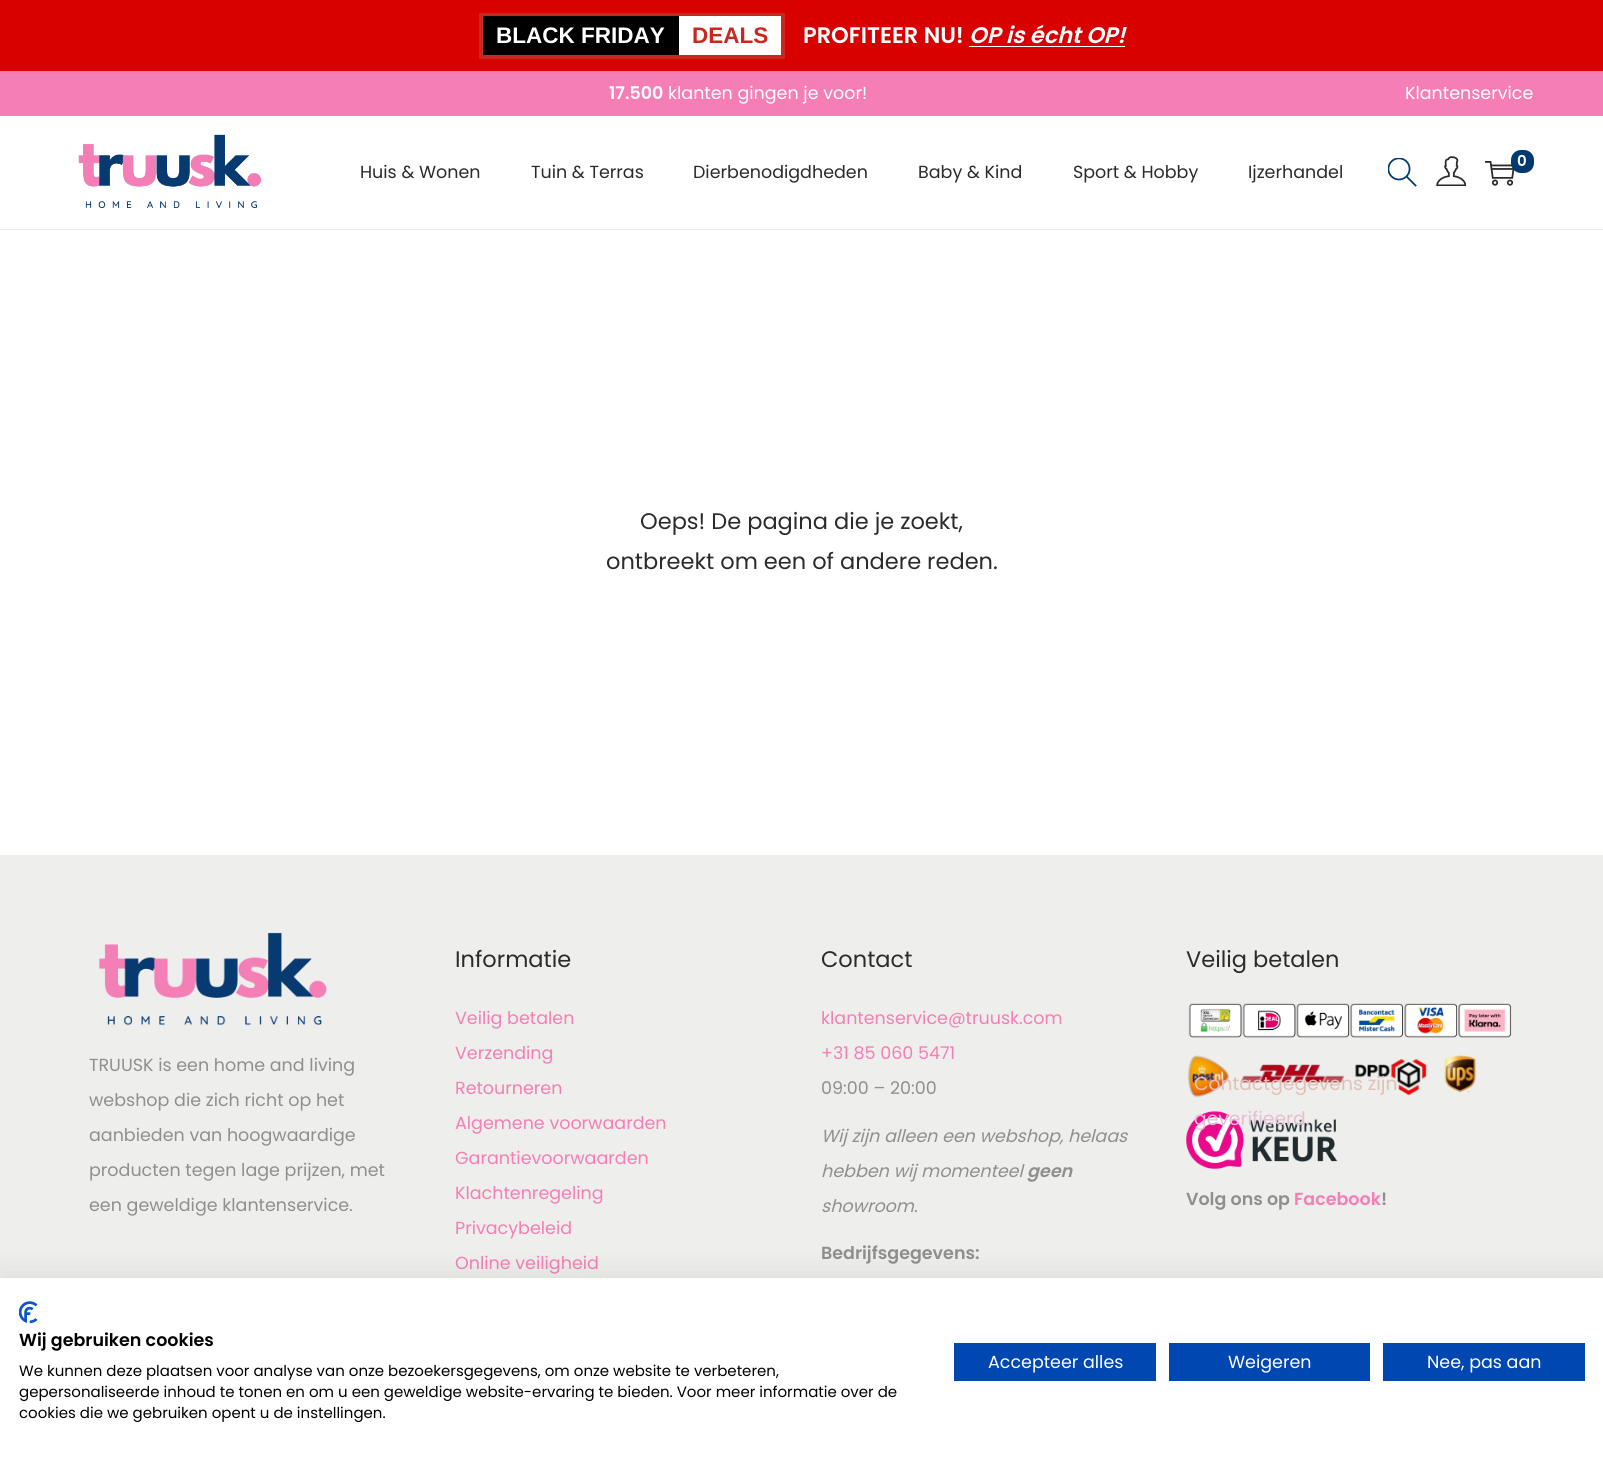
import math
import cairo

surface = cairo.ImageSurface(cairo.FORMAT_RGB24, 1603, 1457)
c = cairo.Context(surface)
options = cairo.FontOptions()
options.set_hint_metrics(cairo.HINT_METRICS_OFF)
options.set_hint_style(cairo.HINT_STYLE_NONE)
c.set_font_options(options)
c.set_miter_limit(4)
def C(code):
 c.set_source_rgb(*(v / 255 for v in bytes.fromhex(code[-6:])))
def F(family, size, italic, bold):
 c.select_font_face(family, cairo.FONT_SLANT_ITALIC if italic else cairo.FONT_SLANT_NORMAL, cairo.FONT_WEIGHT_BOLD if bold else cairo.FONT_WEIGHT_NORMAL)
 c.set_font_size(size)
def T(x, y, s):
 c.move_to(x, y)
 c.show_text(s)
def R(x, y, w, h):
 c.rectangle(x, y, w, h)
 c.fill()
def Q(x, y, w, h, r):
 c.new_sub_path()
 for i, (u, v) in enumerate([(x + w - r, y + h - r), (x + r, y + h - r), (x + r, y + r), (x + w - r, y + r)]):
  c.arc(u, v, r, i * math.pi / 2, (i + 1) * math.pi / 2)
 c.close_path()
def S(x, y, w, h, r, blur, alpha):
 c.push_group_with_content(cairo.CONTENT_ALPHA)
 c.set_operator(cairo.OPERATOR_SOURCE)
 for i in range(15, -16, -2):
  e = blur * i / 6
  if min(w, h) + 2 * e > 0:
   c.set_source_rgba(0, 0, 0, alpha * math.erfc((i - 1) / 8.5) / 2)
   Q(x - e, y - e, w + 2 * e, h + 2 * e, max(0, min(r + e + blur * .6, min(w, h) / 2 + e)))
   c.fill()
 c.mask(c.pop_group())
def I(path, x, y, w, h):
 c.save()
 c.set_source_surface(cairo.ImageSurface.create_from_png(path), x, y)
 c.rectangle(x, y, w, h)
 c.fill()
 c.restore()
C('ffffff')
c.paint()
C('d90000')
R(0,0,1603,71)
c.rectangle(481,15,302,42)
C('c8281d')
c.set_line_width(4)
c.stroke()
C('000000')
R(483,16,196,39)
F('Liberation Sans',22.5,0,1)
C('ffffff')
T(496,43,'BLACK FRIDAY')
R(679,16,102,39)
C('c8281d')
T(692,43,'DEALS')
F('Poppins SemiBold',22.5,0,0)
C('ffffff')
T(803,43,'PROFITEER NU!')
F('Poppins SemiBold',22.5,1,0)
T(969,43,'OP is écht OP!')
R(969,46,156,1)
C('f57eb6')
R(0,71,1603,45)
F('Poppins SemiBold',17.5,0,0)
C('ffffff')
T(609,99,'17.500')
F('Poppins',17.5,0,0)
T(668,99,'klanten gingen je voor!')
T(1405,99,'Klantenservice')
C('eaeaea')
R(0,229,1603,1)
I('1.png',78,134,183,75)
I('2.png',1388,158,29,29)
I('3.png',1436,156,30,30)
I('4.png',1485,161,30,25)
C('003a70')
Q(1511,150,23,23,10)
c.fill()
F('Poppins SemiBold',15,0,0)
C('ffffff')
T(1517,166,'0')
F('Poppins',17.5,0,0)
C('2b2b2b')
T(360,178,'Huis & Wonen')
T(531,178,'Tuin & Terras')
T(693,178,'Dierbenodigdheden')
T(918,178,'Baby & Kind')
T(1073,178,'Sport & Hobby')
T(1248,178,'Ijzerhandel')
F('Poppins',22.5,0,0)
T(640,529,'Oeps! De pagina die je zoekt,')
T(606,569,'ontbreekt om een of andere reden.')
C('eeeeec')
R(0,855,1603,423)
I('5.png',99,932,228,94)
F('Poppins',17.5,0,0)
C('8f8f8f')
T(89,1071,'TRUUSK is een home and living')
T(89,1106,'webshop die zich richt op het')
T(89,1141,'aanbieden van hoogwaardige')
T(89,1176,'producten tegen lage prijzen, met')
T(89,1211,'een geweldige klantenservice.')
F('Poppins',22.5,0,0)
C('2b2b2b')
T(455,967,'Informatie')
F('Poppins',17.5,0,0)
C('f57eb6')
T(455,1024,'Veilig betalen')
T(455,1059,'Verzending')
T(455,1094,'Retourneren')
T(455,1129,'Algemene voorwaarden')
T(455,1164,'Garantievoorwaarden')
T(455,1199,'Klachtenregeling')
T(455,1234,'Privacybeleid')
T(455,1269,'Online veiligheid')
F('Poppins',22.5,0,0)
C('2b2b2b')
T(821,967,'Contact')
F('Poppins',17.5,0,0)
C('f57eb6')
T(821,1024,'klantenservice@truusk.com')
T(821,1059,'+31 85 060 5471')
C('8f8f8f')
T(821,1094,'09:00 – 20:00')
F('Poppins',17.5,1,0)
T(821,1142,'Wij zijn alleen een webshop, helaas')
T(821,1177,'hebben wij momenteel')
F('Poppins SemiBold',17.5,1,0)
T(1027,1177,'geen')
F('Poppins',17.5,1,0)
T(821,1212,'showroom.')
F('Poppins SemiBold',17.5,0,0)
T(821,1259,'Bedrijfsgegevens:')
F('Poppins',22.5,0,0)
C('2b2b2b')
T(1186,967,'Veilig betalen')
I('6.png',1188,1003,324,35)
I('7.png',1187,1054,290,44)
I('8.png',1186,1111,152,58)
F('Poppins SemiBold',17.5,0,0)
C('8f8f8f')
T(1186,1205,'Volg ons op')
C('f57eb6')
T(1294,1205,'Facebook')
C('8f8f8f')
T(1381,1205,'!')
F('Poppins',18.75,0,0)
C('e0c1b7')
T(1194,1090,'Contactgegevens zijn')
C('e4bfd4')
T(1194,1125,'geverifieerd.')
C('000000')
S(0,1278,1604,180,0,15,.1)
C('ffffff')
R(0,1278,1603,179)
I('9.png',19,1301,19,23)
F('Poppins SemiBold',17.5,0,0)
C('000000')
T(19,1346,'Wij gebruiken cookies')
F('Poppins',15,0,0)
T(19,1376,'We kunnen deze plaatsen voor analyse van onze bezoekersgegevens, om onze website te verbeteren,')
T(19,1397,'gepersonaliseerde inhoud te tonen en om u een geweldige website-ervaring te bieden. Voor meer informatie over de')
T(19,1418,'cookies die we gebruiken opent u de instellingen.')
C('0047b2')
R(954,1343,202,38)
F('Poppins',17.5,0,0)
C('ffffff')
T(988,1368,'Accepteer alles')
C('0047b2')
R(1169,1343,201,38)
C('ffffff')
T(1228,1368,'Weigeren')
C('0047b2')
R(1383,1343,202,38)
C('ffffff')
T(1427,1368,'Nee, pas aan')
surface.write_to_png('o.png')
